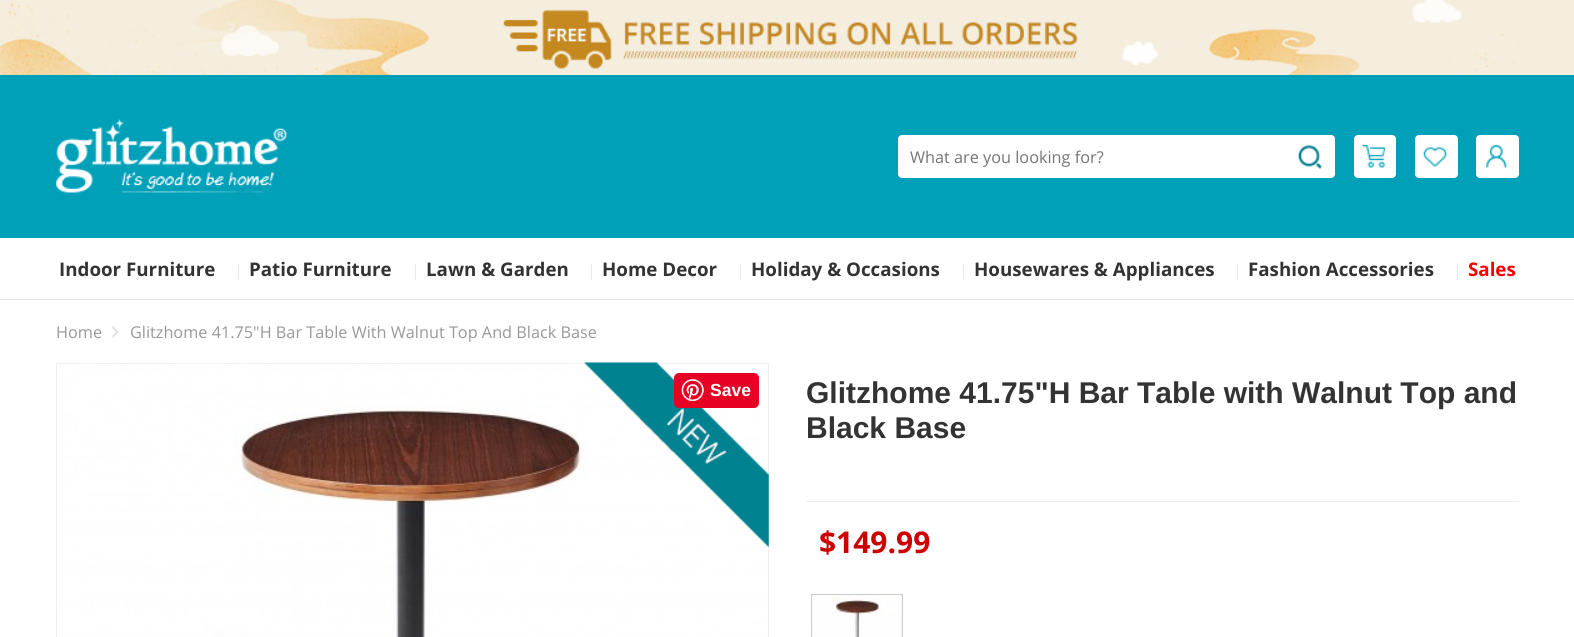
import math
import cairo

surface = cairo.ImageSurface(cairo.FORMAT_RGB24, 1574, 637)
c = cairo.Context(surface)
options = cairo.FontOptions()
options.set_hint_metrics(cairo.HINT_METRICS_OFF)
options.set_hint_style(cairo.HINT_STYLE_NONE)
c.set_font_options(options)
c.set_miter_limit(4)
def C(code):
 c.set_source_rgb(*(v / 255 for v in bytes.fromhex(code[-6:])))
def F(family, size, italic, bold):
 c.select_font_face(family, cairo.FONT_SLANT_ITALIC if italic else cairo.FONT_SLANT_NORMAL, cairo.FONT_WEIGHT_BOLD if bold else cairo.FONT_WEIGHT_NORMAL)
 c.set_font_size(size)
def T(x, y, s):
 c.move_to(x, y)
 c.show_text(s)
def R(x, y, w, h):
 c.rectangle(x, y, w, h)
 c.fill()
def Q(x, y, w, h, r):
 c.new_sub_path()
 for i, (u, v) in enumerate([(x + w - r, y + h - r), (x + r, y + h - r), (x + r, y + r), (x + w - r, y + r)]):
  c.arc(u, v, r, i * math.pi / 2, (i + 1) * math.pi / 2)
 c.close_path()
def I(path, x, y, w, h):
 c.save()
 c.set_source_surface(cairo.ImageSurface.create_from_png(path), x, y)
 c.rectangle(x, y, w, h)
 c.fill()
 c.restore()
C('ffffff')
c.paint()
I('1.png',0,0,1574,75)
C('00a0b9')
R(0,75,1574,163)
I('2.png',56,118,231,75)
C('ffffff')
Q(898,135,437,43,4)
c.fill()
F('Open Sans',16.25,0,0)
C('757575')
T(910,163,'What are you looking for?')
I('3.png',1298,144,24,25)
C('ffffff')
Q(1354,135,42,43,4)
c.fill()
I('4.png',1362,144,24,24)
Q(1415,135,43,43,4)
c.fill()
I('5.png',1423,147,24,20)
Q(1476,135,43,43,4)
c.fill()
I('6.png',1486,144,21,24)
C('e2e2e2')
R(0,299,1574,1)
F('Open Sans',18.75,0,1)
C('333333')
T(59,276,'Indoor Furniture')
F('Open Sans',16.25,0,0)
C('e8e8e8')
T(234,276,'|')
F('Open Sans',18.75,0,1)
C('333333')
T(249,276,'Patio Furniture')
F('Open Sans',16.25,0,0)
C('e8e8e8')
T(411,276,'|')
F('Open Sans',18.75,0,1)
C('333333')
T(426,276,'Lawn & Garden')
F('Open Sans',16.25,0,0)
C('e8e8e8')
T(587,276,'|')
F('Open Sans',18.75,0,1)
C('333333')
T(602,276,'Home Decor')
F('Open Sans',16.25,0,0)
C('e8e8e8')
T(736,276,'|')
F('Open Sans',18.75,0,1)
C('333333')
T(751,276,'Holiday & Occasions')
F('Open Sans',16.25,0,0)
C('e8e8e8')
T(959,276,'|')
F('Open Sans',18.75,0,1)
C('333333')
T(974,276,'Housewares & Appliances')
F('Open Sans',16.25,0,0)
C('e8e8e8')
T(1233,276,'|')
F('Open Sans',18.75,0,1)
C('333333')
T(1248,276,'Fashion Accessories')
F('Open Sans',16.25,0,0)
C('e8e8e8')
T(1453,276,'|')
F('Open Sans',18.75,0,1)
C('ff0000')
T(1468,276,'Sales')
F('Open Sans',16.25,0,0)
C('999999')
T(56,338,'Home')
I('7.png',112,326,7,12)
T(130,338,'Glitzhome 41.75"H Bar Table With Walnut Top And Black Base')
c.rectangle(56.5,363.5,712,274)
C('eeeeee')
c.set_line_width(1)
c.stroke()
I('9.png',58,363,709,274)
I('8.png',583,362,186,186)
C('e60023')
Q(674,373,85,35,5)
c.fill()
I('10.png',681,379,23,22)
F('Liberation Sans',17.5,0,1)
C('ffffff')
T(710,396,'Save')
F('Liberation Sans',30,0,1)
C('333333')
T(806,403,'Glitzhome 41.75"H Bar Table with Walnut Top and')
T(806,438,'Black Base')
C('eeeeee')
R(806,501,713,1)
F('Open Sans',30,0,1)
C('cc0000')
T(819,553,'$149.99')
C('f7f7f7')
c.rectangle(811.5,594.5,91,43)
c.fill_preserve()
C('cccccc')
c.stroke()
I('11.png',812,595,89,42)
surface.write_to_png('o.png')
